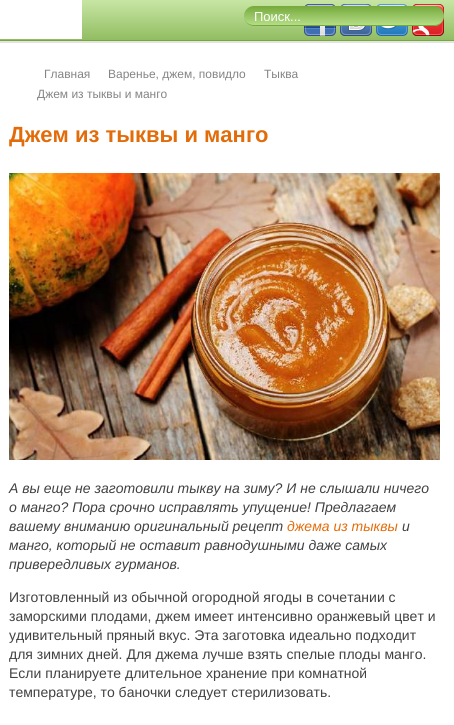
import math
import cairo

surface = cairo.ImageSurface(cairo.FORMAT_RGB24, 454, 725)
c = cairo.Context(surface)
options = cairo.FontOptions()
options.set_hint_metrics(cairo.HINT_METRICS_OFF)
options.set_hint_style(cairo.HINT_STYLE_NONE)
c.set_font_options(options)
c.set_miter_limit(4)
def C(code):
 c.set_source_rgb(*(v / 255 for v in bytes.fromhex(code[-6:])))
def F(family, size, italic, bold):
 c.select_font_face(family, cairo.FONT_SLANT_ITALIC if italic else cairo.FONT_SLANT_NORMAL, cairo.FONT_WEIGHT_BOLD if bold else cairo.FONT_WEIGHT_NORMAL)
 c.set_font_size(size)
def T(x, y, s):
 c.move_to(x, y)
 c.show_text(s)
def R(x, y, w, h):
 c.rectangle(x, y, w, h)
 c.fill()
def Q(x, y, w, h, r):
 c.new_sub_path()
 for i, (u, v) in enumerate([(x + w - r, y + h - r), (x + r, y + h - r), (x + r, y + r), (x + w - r, y + r)]):
  c.arc(u, v, r, i * math.pi / 2, (i + 1) * math.pi / 2)
 c.close_path()
def I(path, x, y, w, h):
 c.save()
 c.set_source_surface(cairo.ImageSurface.create_from_png(path), x, y)
 c.rectangle(x, y, w, h)
 c.fill()
 c.restore()
C('ffffff')
c.paint()
gradient = cairo.LinearGradient(227,0,227,40)
gradient.add_color_stop_rgba(0,0.78,0.902,0.643,1)
gradient.add_color_stop_rgba(1,0.573,0.741,0.384,1)
c.set_source(gradient)
R(0,0,454,40)
C('74a93a')
R(0,40,454,1)
C('ffffff')
R(0,0,82,39)
I('1.png',304,4,32,32)
I('2.png',340,4,32,32)
I('3.png',376,4,32,32)
I('4.png',412,4,32,32)
gradient = cairo.LinearGradient(344,6,344,26)
gradient.add_color_stop_rgba(0,0.455,0.663,0.227,1)
gradient.add_color_stop_rgba(1,0.722,0.878,0.549,1)
c.set_source(gradient)
Q(244,6,200,20,10)
c.fill()
C('76a83a')
c.new_path()
c.move_to(244,16)
c.curve_to(244,21,248,26,254,26)
c.line_to(434,26)
c.curve_to(440,26,444,21,444,16)
c.curve_to(444,21,440,25,434,25)
c.line_to(254,25)
c.curve_to(248,25,244,21,244,16)
c.close_path()
c.fill()
F('Liberation Sans',13,0,0)
C('ffffff')
T(254,21,'Поиск...')
C('e3e3e3')
R(0,41,454,2)
F('Liberation Sans',12,0,0)
C('848484')
T(44,78,'Главная')
T(108,78,'Варенье, джем, повидло')
T(264,78,'Тыква')
T(37,98,'Джем из тыквы и манго')
F('Liberation Sans',22,0,1)
C('e36c0a')
T(9,142,'Джем из тыквы и манго')
I('5.png',9,173,431,287)
F('Liberation Sans',14,1,0)
C('414141')
T(9,493,'А вы еще не заготовили тыкву на зиму? И не слышали ничего')
T(9,512,'о манго? Пора срочно исправлять упущение! Предлагаем')
T(9,531,'вашему вниманию оригинальный рецепт')
C('e36c0a')
T(287,531,'джема из тыквы')
C('414141')
T(402,531,'и')
T(9,550,'манго, который не оставит равнодушными даже самых')
T(9,569,'привередливых гурманов.')
F('Liberation Sans',14,0,0)
T(9,602,'Изготовленный из обычной огородной ягоды в сочетании с')
T(9,621,'заморскими плодами, джем имеет интенсивно оранжевый цвет и')
T(9,640,'удивительный пряный вкус. Эта заготовка идеально подходит')
T(9,659,'для зимних дней. Для джема лучше взять спелые плоды манго.')
T(9,678,'Если планируете длительное хранение при комнатной')
T(9,697,'температуре, то баночки следует стерилизовать.')
surface.write_to_png('o.png')
